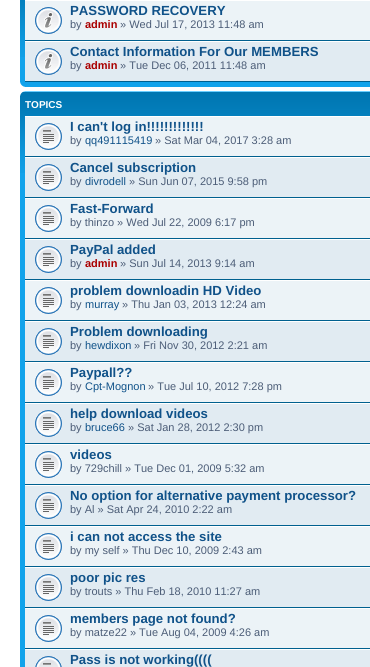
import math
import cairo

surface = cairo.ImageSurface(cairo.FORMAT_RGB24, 370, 667)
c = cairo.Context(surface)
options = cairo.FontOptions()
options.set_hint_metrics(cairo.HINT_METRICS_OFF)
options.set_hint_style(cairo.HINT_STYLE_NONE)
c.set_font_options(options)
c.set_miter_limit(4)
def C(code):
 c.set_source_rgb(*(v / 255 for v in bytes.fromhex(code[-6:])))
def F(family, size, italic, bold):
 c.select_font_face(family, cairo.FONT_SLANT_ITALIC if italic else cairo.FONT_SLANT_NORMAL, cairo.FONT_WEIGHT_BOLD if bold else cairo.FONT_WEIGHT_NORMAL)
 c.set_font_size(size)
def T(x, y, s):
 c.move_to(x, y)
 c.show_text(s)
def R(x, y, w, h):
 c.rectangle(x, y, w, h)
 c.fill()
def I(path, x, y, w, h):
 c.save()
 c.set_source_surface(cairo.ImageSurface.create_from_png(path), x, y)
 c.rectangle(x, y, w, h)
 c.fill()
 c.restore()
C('ffffff')
c.paint()
C('12a3eb')
R(20,57,350,30)
I('1.png',20,0,5,57)
C('ecf3f7')
R(25,1,345,39)
C('00608f')
R(25,40,345,1)
I('2.png',35,7,27,27)
F('Liberation Sans',13.2,0,1)
C('105289')
T(70,15,'PASSWORD RECOVERY')
F('Liberation Sans',11,0,0)
C('4c5d77')
T(70,28,'by')
F('Liberation Sans',11,0,1)
C('aa0000')
T(85,28,'admin')
F('Liberation Sans',11,0,0)
C('4c5d77')
T(120,28,'» Wed Jul 17, 2013 11:48 am')
C('e1ebf2')
R(25,42,345,39)
C('00608f')
R(25,81,345,1)
I('3.png',35,48,27,27)
F('Liberation Sans',13.2,0,1)
C('105289')
T(70,56,'Contact Information For Our MEMBERS')
F('Liberation Sans',11,0,0)
C('4c5d77')
T(70,69,'by')
F('Liberation Sans',11,0,1)
C('aa0000')
T(85,69,'admin')
F('Liberation Sans',11,0,0)
C('4c5d77')
T(120,69,'» Tue Dec 06, 2011 11:48 am')
I('4.png',20,82,5,5)
C('12a3eb')
R(20,173,5,494)
I('5.png',20,91,350,82)
I('6.png',20,91,5,5)
F('Liberation Sans',10,0,1)
C('ffffff')
T(25,108,'TOPICS')
C('ecf3f7')
R(25,117,345,39)
C('ffffff')
R(25,116,345,1)
C('00608f')
R(25,156,345,1)
I('7.png',35,123,27,27)
F('Liberation Sans',13.2,0,1)
C('105289')
T(70,131,'I can\'t log in!!!!!!!!!!!!!')
F('Liberation Sans',11,0,0)
C('4c5d77')
T(70,144,'by')
C('105289')
T(85,144,'qq491115419')
C('4c5d77')
T(155,144,'» Sat Mar 04, 2017 3:28 am')
C('e1ebf2')
R(25,158,345,39)
C('ffffff')
R(25,157,345,1)
C('00608f')
R(25,197,345,1)
I('8.png',35,164,27,27)
F('Liberation Sans',13.2,0,1)
C('105289')
T(70,172,'Cancel subscription')
F('Liberation Sans',11,0,0)
C('4c5d77')
T(70,185,'by')
C('105289')
T(85,185,'divrodell')
C('4c5d77')
T(129,185,'» Sun Jun 07, 2015 9:58 pm')
C('ecf3f7')
R(25,199,345,39)
C('00608f')
R(25,238,345,1)
I('7.png',35,205,27,27)
F('Liberation Sans',13.2,0,1)
C('105289')
T(70,213,'Fast-Forward')
F('Liberation Sans',11,0,0)
C('4c5d77')
T(70,226,'by thinzo » Wed Jul 22, 2009 6:17 pm')
C('e1ebf2')
R(25,240,345,39)
C('00608f')
R(25,279,345,1)
I('8.png',35,246,27,27)
F('Liberation Sans',13.2,0,1)
C('105289')
T(70,254,'PayPal added')
F('Liberation Sans',11,0,0)
C('4c5d77')
T(70,267,'by')
F('Liberation Sans',11,0,1)
C('aa0000')
T(85,267,'admin')
F('Liberation Sans',11,0,0)
C('4c5d77')
T(120,267,'» Sun Jul 14, 2013 9:14 am')
C('ecf3f7')
R(25,281,345,39)
C('00608f')
R(25,320,345,1)
I('7.png',35,287,27,27)
F('Liberation Sans',13.2,0,1)
C('105289')
T(70,295,'problem downloadin HD Video')
F('Liberation Sans',11,0,0)
C('4c5d77')
T(70,308,'by')
C('105289')
T(85,308,'murray')
C('4c5d77')
T(122,308,'» Thu Jan 03, 2013 12:24 am')
C('e1ebf2')
R(25,322,345,39)
C('00608f')
R(25,361,345,1)
I('8.png',35,328,27,27)
F('Liberation Sans',13.2,0,1)
C('105289')
T(70,336,'Problem downloading')
F('Liberation Sans',11,0,0)
C('4c5d77')
T(70,349,'by')
C('105289')
T(85,349,'hewdixon')
C('4c5d77')
T(134,349,'» Fri Nov 30, 2012 2:21 am')
C('ecf3f7')
R(25,363,345,39)
C('00608f')
R(25,402,345,1)
I('7.png',35,369,27,27)
F('Liberation Sans',13.2,0,1)
C('105289')
T(70,377,'Paypall??')
F('Liberation Sans',11,0,0)
C('4c5d77')
T(70,390,'by')
C('105289')
T(85,390,'Cpt-Mognon')
C('4c5d77')
T(148,390,'» Tue Jul 10, 2012 7:28 pm')
C('e1ebf2')
R(25,404,345,39)
C('00608f')
R(25,443,345,1)
I('8.png',35,410,27,27)
F('Liberation Sans',13.2,0,1)
C('105289')
T(70,418,'help download videos')
F('Liberation Sans',11,0,0)
C('4c5d77')
T(70,431,'by')
C('105289')
T(85,431,'bruce66')
C('4c5d77')
T(128,431,'» Sat Jan 28, 2012 2:30 pm')
C('ecf3f7')
R(25,445,345,39)
C('00608f')
R(25,484,345,1)
I('7.png',35,451,27,27)
F('Liberation Sans',13.2,0,1)
C('105289')
T(70,459,'videos')
F('Liberation Sans',11,0,0)
C('4c5d77')
T(70,472,'by 729chill » Tue Dec 01, 2009 5:32 am')
C('e1ebf2')
R(25,486,345,39)
C('00608f')
R(25,525,345,1)
I('8.png',35,492,27,27)
F('Liberation Sans',13.2,0,1)
C('105289')
T(70,500,'No option for alternative payment processor?')
F('Liberation Sans',11,0,0)
C('4c5d77')
T(70,513,'by Al » Sat Apr 24, 2010 2:22 am')
C('ecf3f7')
R(25,527,345,39)
C('00608f')
R(25,566,345,1)
I('7.png',35,533,27,27)
F('Liberation Sans',13.2,0,1)
C('105289')
T(70,541,'i can not access the site')
F('Liberation Sans',11,0,0)
C('4c5d77')
T(70,554,'by my self » Thu Dec 10, 2009 2:43 am')
C('e1ebf2')
R(25,568,345,39)
C('00608f')
R(25,607,345,1)
I('8.png',35,574,27,27)
F('Liberation Sans',13.2,0,1)
C('105289')
T(70,582,'poor pic res')
F('Liberation Sans',11,0,0)
C('4c5d77')
T(70,595,'by trouts » Thu Feb 18, 2010 11:27 am')
C('ecf3f7')
R(25,609,345,39)
C('00608f')
R(25,648,345,1)
I('7.png',35,615,27,27)
F('Liberation Sans',13.2,0,1)
C('105289')
T(70,623,'members page not found?')
F('Liberation Sans',11,0,0)
C('4c5d77')
T(70,636,'by matze22 » Tue Aug 04, 2009 4:26 am')
C('e1ebf2')
R(25,650,345,17)
I('9.png',35,656,27,11)
F('Liberation Sans',13.2,0,1)
C('105289')
T(70,664,'Pass is not working((((')
surface.write_to_png('o.png')
